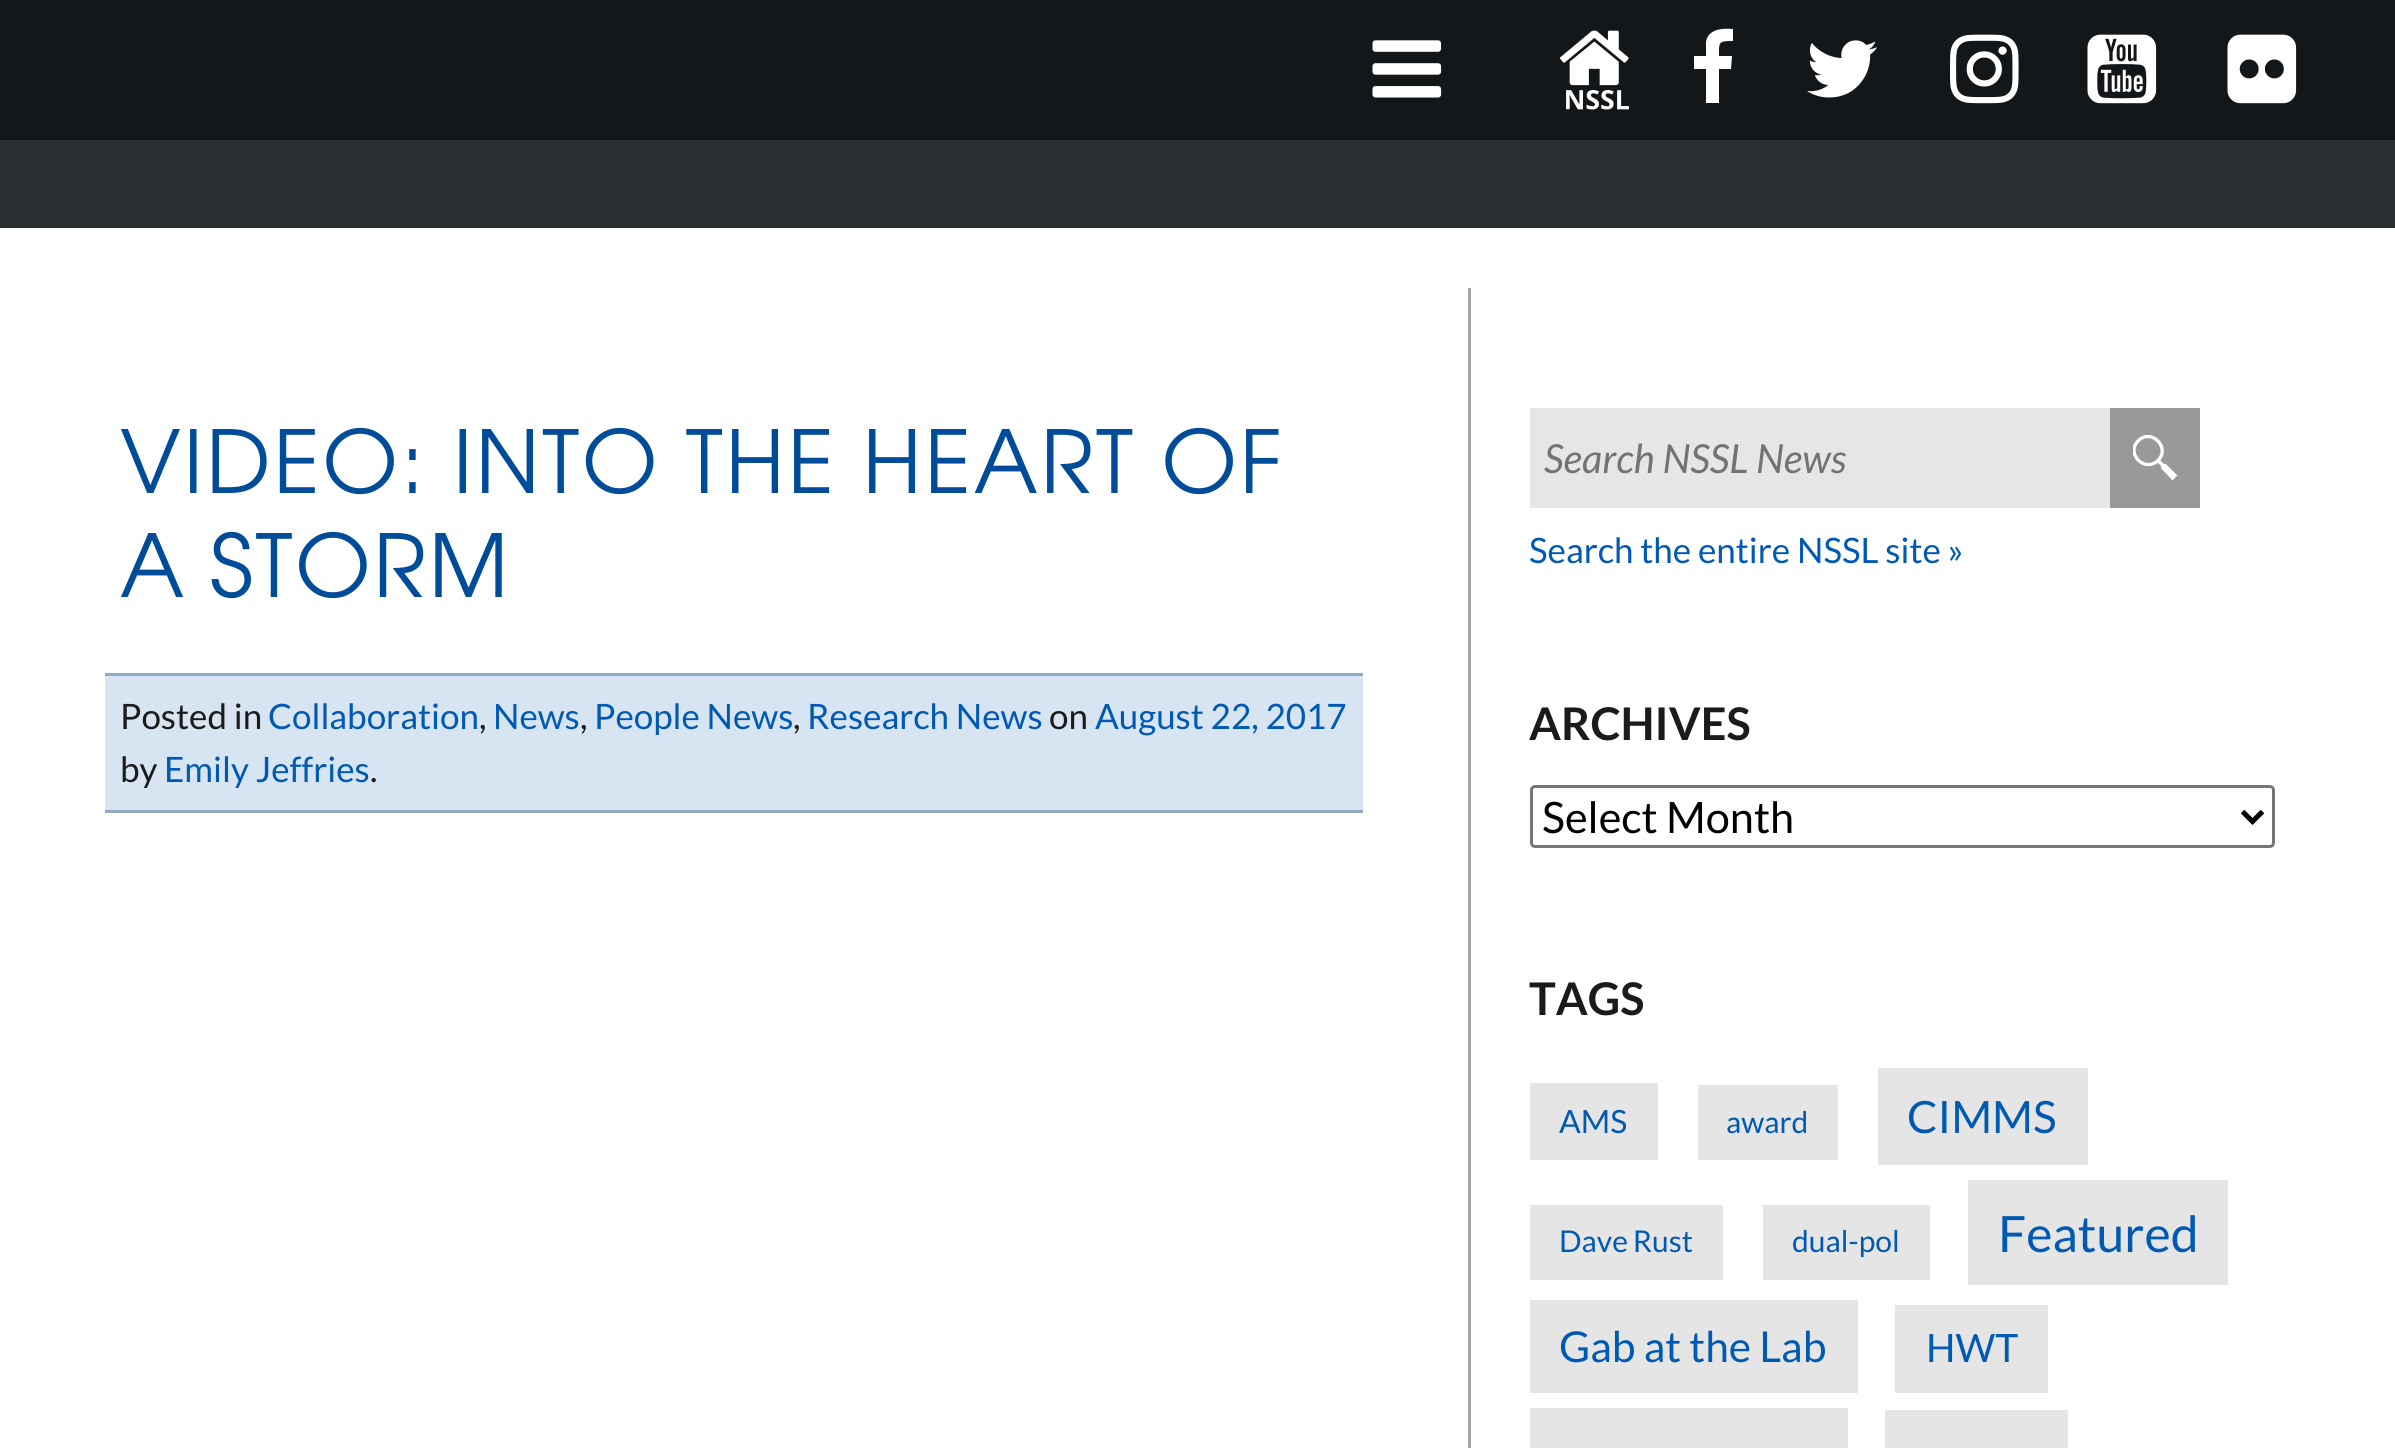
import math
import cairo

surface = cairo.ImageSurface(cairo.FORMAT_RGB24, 2395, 1448)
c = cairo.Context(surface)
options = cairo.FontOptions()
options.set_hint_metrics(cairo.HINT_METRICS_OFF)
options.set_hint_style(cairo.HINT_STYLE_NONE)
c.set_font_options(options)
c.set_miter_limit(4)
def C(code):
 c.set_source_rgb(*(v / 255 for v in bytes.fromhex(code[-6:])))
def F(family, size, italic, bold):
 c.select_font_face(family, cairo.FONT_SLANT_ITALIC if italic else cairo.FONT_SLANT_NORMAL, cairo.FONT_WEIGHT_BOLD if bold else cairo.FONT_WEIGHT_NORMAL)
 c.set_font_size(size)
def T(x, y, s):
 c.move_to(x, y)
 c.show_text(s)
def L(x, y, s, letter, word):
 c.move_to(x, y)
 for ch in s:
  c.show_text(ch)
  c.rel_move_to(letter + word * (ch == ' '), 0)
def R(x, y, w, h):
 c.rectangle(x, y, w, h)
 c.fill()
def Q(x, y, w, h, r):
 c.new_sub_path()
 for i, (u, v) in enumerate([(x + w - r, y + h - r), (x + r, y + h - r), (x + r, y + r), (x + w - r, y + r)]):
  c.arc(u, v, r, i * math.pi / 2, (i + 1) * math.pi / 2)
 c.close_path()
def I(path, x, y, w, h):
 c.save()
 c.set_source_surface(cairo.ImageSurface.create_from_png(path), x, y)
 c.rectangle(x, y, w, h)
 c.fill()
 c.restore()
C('ffffff')
c.paint()
C('141719')
R(0,0,2395,140)
I('1.png',1372,40,70,58)
I('2.png',1560,30,69,80)
C('ffffff')
c.new_path()
c.move_to(1733,29)
c.line_to(1733,41)
c.curve_to(1718,41,1719,42,1719,56)
c.line_to(1732,56)
c.line_to(1731,69)
c.line_to(1719,69)
c.line_to(1719,103)
c.line_to(1706,103)
c.line_to(1706,69)
c.line_to(1694,69)
c.line_to(1694,56)
c.line_to(1706,56)
c.line_to(1706,42)
c.curve_to(1708,29,1722,28,1733,29)
c.close_path()
c.fill()
I('3.png',1807,40,71,58)
I('4.png',1950,34,69,70)
I('5.png',2087,34,70,70)
I('6.png',2227,34,70,70)
C('292e33')
R(0,140,2395,88)
F('TeX Gyre Adventor',86.6,0,0)
C('004c98')
L(120,493,'VIDEO: INTO THE HEART OF',2.8,-1)
L(120,597,'A STORM',2.8,-4)
C('d7e5f3')
R(105,676,1258,134)
C('91aac4')
R(105,673,1258,3)
R(105,810,1258,3)
F('Lato',35,0,0)
C('1b1b1b')
T(120,729,'Posted in')
C('0059b2')
T(268,729,'Collaboration')
C('1b1b1b')
T(479,729,',')
C('0059b2')
T(493,729,'News')
C('1b1b1b')
T(580,729,',')
C('0059b2')
T(594,729,'People News')
C('1b1b1b')
T(793,729,',')
C('0059b2')
T(807,729,'Research News')
C('1b1b1b')
T(1049,729,'on')
C('0059b2')
T(1095,729,'August 22, 2017')
C('1b1b1b')
T(120,782,'by')
C('0059b2')
T(164,782,'Emily Jeffries')
C('1b1b1b')
T(370,782,'.')
C('a6a6a6')
R(1468,288,3,1160)
C('e6e6e6')
R(1530,408,580,100)
F('Lato',40,1,0)
C('737373')
T(1544,473,'Search NSSL News')
C('999999')
R(2110,408,90,100)
c.save()
c.rectangle(2133,435,45,45)
c.clip()
c.new_path()
c.move_to(2158,460.5)
c.curve_to(2171,447.5,2151,427.5,2138,441)
c.curve_to(2125.5,454,2145,473,2158,460.5)
c.line_to(2173.5,476)
c.move_to(2165,465.5)
c.line_to(2175,475.5)
c.line_to(2172.5,478)
c.line_to(2162.5,467.5)
C('ffffff')
c.set_line_width(3.3)
c.set_line_cap(cairo.LINE_CAP_ROUND)
c.stroke()
c.restore()
F('Lato',35,0,0)
C('0059b2')
T(1529,563,'Search the entire NSSL site »')
F('Lato',45,0,1)
C('1b1b1b')
T(1529,740,'ARCHIVES')
Q(1531.5,786.5,742,60,3.5)
C('767676')
c.set_line_width(3)
c.stroke()
c.new_path()
c.move_to(2242.5,811.5)
c.line_to(2252.5,821.5)
c.line_to(2262.5,811.5)
C('000000')
c.set_line_width(5)
c.stroke()
F('Lato',43.25,0,0)
T(1542,833,'Select Month')
F('Lato',45,0,1)
C('1b1b1b')
T(1529,1015,'TAGS')
C('e5e5e5')
R(1530,1083,128,77)
F('Lato',32,0,0)
C('0059b2')
T(1559,1133,'AMS')
C('e5e5e5')
R(1698,1085,140,75)
F('Lato',30,0,0)
C('0059b2')
T(1726,1133,'award')
C('e5e5e5')
R(1878,1068,210,97)
F('Lato',44.5,0,0)
C('0059b2')
T(1907,1133,'CIMMS')
C('e5e5e5')
R(1530,1205,193,75)
F('Lato',30,0,0)
C('0059b2')
L(1559,1252,'Dave Rust',0,-1)
C('e5e5e5')
R(1763,1205,167,75)
C('0059b2')
T(1792,1252,'dual-pol')
C('e5e5e5')
R(1968,1180,260,105)
F('Lato',50,0,0)
C('0059b2')
T(1998,1252,'Featured')
C('e5e5e5')
R(1530,1300,328,93)
F('Lato',42.5,0,0)
C('0059b2')
T(1559,1362,'Gab at the Lab')
C('e5e5e5')
R(1895,1305,153,88)
F('Lato',39,0,0)
C('0059b2')
T(1926,1362,'HWT')
C('e5e5e5')
R(1530,1408,318,40)
R(1885,1410,183,38)
surface.write_to_png('o.png')
